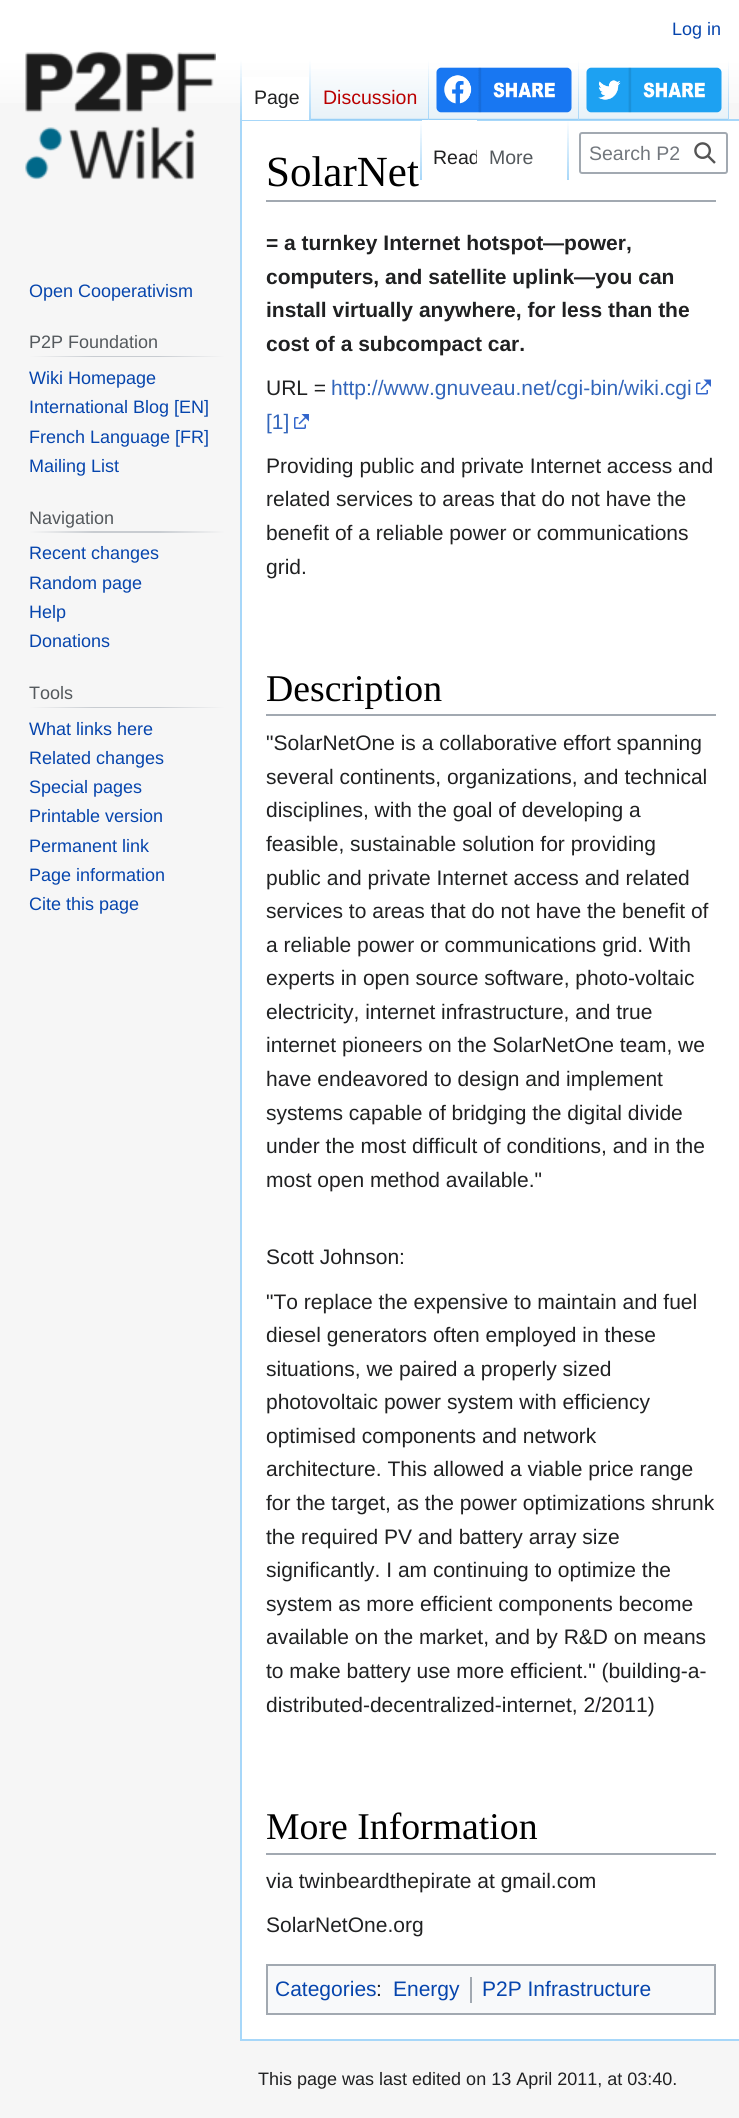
import math
import cairo

surface = cairo.ImageSurface(cairo.FORMAT_RGB24, 739, 2118)
c = cairo.Context(surface)
options = cairo.FontOptions()
options.set_hint_metrics(cairo.HINT_METRICS_OFF)
options.set_hint_style(cairo.HINT_STYLE_NONE)
c.set_font_options(options)
c.set_miter_limit(4)
def C(code):
 c.set_source_rgb(*(v / 255 for v in bytes.fromhex(code[-6:])))
def F(family, size, italic, bold):
 c.select_font_face(family, cairo.FONT_SLANT_ITALIC if italic else cairo.FONT_SLANT_NORMAL, cairo.FONT_WEIGHT_BOLD if bold else cairo.FONT_WEIGHT_NORMAL)
 c.set_font_size(size)
def T(x, y, s):
 c.move_to(x, y)
 c.show_text(s)
def R(x, y, w, h):
 c.rectangle(x, y, w, h)
 c.fill()
def Q(x, y, w, h, r):
 c.new_sub_path()
 for i, (u, v) in enumerate([(x + w - r, y + h - r), (x + r, y + h - r), (x + r, y + r), (x + w - r, y + r)]):
  c.arc(u, v, r, i * math.pi / 2, (i + 1) * math.pi / 2)
 c.close_path()
def I(path, x, y, w, h):
 c.save()
 c.set_source_surface(cairo.ImageSurface.create_from_png(path), x, y)
 c.rectangle(x, y, w, h)
 c.fill()
 c.restore()
C('f6f6f6')
c.paint()
gradient = cairo.LinearGradient(370,0,370,120)
gradient.add_color_stop_rgba(.5,1,1,1,1)
gradient.add_color_stop_rgba(1,0.965,0.965,0.965,1)
c.set_source(gradient)
R(0,0,739,103)
F('Liberation Sans',18,0,0)
C('0645ad')
T(672,35,'Log in')
C('a7d7f9')
R(240,119,499,2)
R(240,2039,499,2)
R(240,119,2,1921)
gradient = cairo.LinearGradient(241,60,241,120)
gradient.add_color_stop_rgba(0,0.655,0.843,0.976,0)
gradient.add_color_stop_rgba(1,0.655,0.843,0.976,1)
c.set_source(gradient)
R(240,60,2,60)
C('ffffff')
R(242,77,67,43)
gradient = cairo.LinearGradient(310,60,310,120)
gradient.add_color_stop_rgba(0,1,1,1,1)
gradient.add_color_stop_rgba(1,0.655,0.843,0.976,1)
c.set_source(gradient)
R(309,60,2,60)
F('Liberation Sans',19.5,0,0)
C('202122')
T(254,104,'Page')
gradient = cairo.LinearGradient(370,120,370,60)
gradient.add_color_stop_rgba(0,0.467,0.757,0.965,1)
gradient.add_color_stop_rgba(.03,0.91,0.949,0.973,1)
gradient.add_color_stop_rgba(1,1,1,1,1)
c.set_source(gradient)
R(311,69,118,51)
gradient = cairo.LinearGradient(428,60,428,120)
gradient.add_color_stop_rgba(0,0.655,0.843,0.976,0)
gradient.add_color_stop_rgba(1,0.655,0.843,0.976,1)
c.set_source(gradient)
R(428,60,1,60)
C('ba0000')
T(323,104,'Discussion')
gradient = cairo.LinearGradient(504,120,504,60)
gradient.add_color_stop_rgba(0,0.467,0.757,0.965,1)
gradient.add_color_stop_rgba(.03,0.91,0.949,0.973,1)
gradient.add_color_stop_rgba(1,1,1,1,1)
c.set_source(gradient)
R(429,69,150,51)
gradient = cairo.LinearGradient(578,60,578,120)
gradient.add_color_stop_rgba(0,0.655,0.843,0.976,0)
gradient.add_color_stop_rgba(1,0.655,0.843,0.976,1)
c.set_source(gradient)
R(578,60,1,60)
I('1.png',436,67,136,46)
gradient = cairo.LinearGradient(654,120,654,60)
gradient.add_color_stop_rgba(0,0.467,0.757,0.965,1)
gradient.add_color_stop_rgba(.03,0.91,0.949,0.973,1)
gradient.add_color_stop_rgba(1,1,1,1,1)
c.set_source(gradient)
R(579,69,150,51)
gradient = cairo.LinearGradient(728,60,728,120)
gradient.add_color_stop_rgba(0,0.655,0.843,0.976,0)
gradient.add_color_stop_rgba(1,0.655,0.843,0.976,1)
c.set_source(gradient)
R(728,60,1,60)
I('2.png',586,67,136,46)
C('ffffff')
R(242,121,497,1918)
gradient = cairo.LinearGradient(421,120,421,180)
gradient.add_color_stop_rgba(0,0.655,0.843,0.976,0)
gradient.add_color_stop_rgba(1,0.655,0.843,0.976,1)
c.set_source(gradient)
R(420,120,2,60)
C('ffffff')
R(422,120,55,1)
c.save()
c.rectangle(422,120,55,60)
c.clip()
C('202122')
T(433,164,'Read')
c.restore()
gradient = cairo.LinearGradient(568,120,568,180)
gradient.add_color_stop_rgba(0,0.655,0.843,0.976,0)
gradient.add_color_stop_rgba(1,0.655,0.843,0.976,1)
c.set_source(gradient)
R(567,120,2,60)
C('54595d')
T(489,164,'More')
Q(580,133,147,40,2)
C('a2a9b1')
c.stroke()
C('72777d')
T(589,160,'Search P2')
I('3.png',694,142,22,22)
I('4.png',25,51,191,129)
F('Liberation Sans',18,0,0)
C('0645ad')
T(29,297,'Open Cooperativism')
gradient = cairo.LinearGradient(29,356,225,356)
gradient.add_color_stop_rgba(0,0.965,0.965,0.965,1)
gradient.add_color_stop_rgba(.33,0.784,0.8,0.82,1)
gradient.add_color_stop_rgba(.66,0.784,0.8,0.82,1)
gradient.add_color_stop_rgba(1,0.965,0.965,0.965,1)
c.set_source(gradient)
R(29,356,196,1)
C('54595d')
T(29,348,'P2P Foundation')
C('0645ad')
T(29,384,'Wiki Homepage')
T(29,413,'International Blog [EN]')
T(29,443,'French Language [FR]')
T(29,472,'Mailing List')
gradient = cairo.LinearGradient(29,532,225,532)
gradient.add_color_stop_rgba(0,0.965,0.965,0.965,1)
gradient.add_color_stop_rgba(.33,0.784,0.8,0.82,1)
gradient.add_color_stop_rgba(.66,0.784,0.8,0.82,1)
gradient.add_color_stop_rgba(1,0.965,0.965,0.965,1)
c.set_source(gradient)
R(29,531,196,2)
C('54595d')
T(29,524,'Navigation')
C('0645ad')
T(29,559,'Recent changes')
T(29,589,'Random page')
T(29,618,'Help')
T(29,647,'Donations')
gradient = cairo.LinearGradient(29,707,225,707)
gradient.add_color_stop_rgba(0,0.965,0.965,0.965,1)
gradient.add_color_stop_rgba(.33,0.784,0.8,0.82,1)
gradient.add_color_stop_rgba(.66,0.784,0.8,0.82,1)
gradient.add_color_stop_rgba(1,0.965,0.965,0.965,1)
c.set_source(gradient)
R(29,707,196,1)
C('54595d')
T(29,699,'Tools')
C('0645ad')
T(29,735,'What links here')
T(29,764,'Related changes')
T(29,793,'Special pages')
T(29,822,'Printable version')
T(29,852,'Permanent link')
T(29,881,'Page information')
T(29,910,'Cite this page')
C('a2a9b1')
R(266,200,450,2)
F('Liberation Serif',43,0,0)
C('000000')
T(266,186,'SolarNet')
F('Liberation Sans',21,0,1)
C('202122')
T(266,250,'= a turnkey Internet hotspot—power,')
T(266,284,'computers, and satellite uplink—you can')
T(266,317,'install virtually anywhere, for less than the')
T(266,351,'cost of a subcompact car.')
F('Liberation Sans',21,0,0)
T(266,395,'URL =')
C('3366bb')
T(331,395,'http://www.gnuveau.net/cgi-bin/wiki.cgi')
I('5.png',696,379,15,16)
T(266,429,'[1]')
I('6.png',294,414,15,15)
C('202122')
T(266,473,'Providing public and private Internet access and')
T(266,506,'related services to areas that do not have the')
T(266,540,'benefit of a reliable power or communications')
T(266,574,'grid.')
C('a2a9b1')
R(266,714,450,2)
F('Liberation Serif',37.75,0,0)
C('000000')
T(266,701,'Description')
F('Liberation Sans',21,0,0)
C('202122')
T(266,750,'"SolarNetOne is a collaborative effort spanning')
T(266,784,'several continents, organizations, and technical')
T(266,817,'disciplines, with the goal of developing a')
T(266,851,'feasible, sustainable solution for providing')
T(266,885,'public and private Internet access and related')
T(266,918,'services to areas that do not have the benefit of')
T(266,952,'a reliable power or communications grid. With')
T(266,985,'experts in open source software, photo-voltaic')
T(266,1019,'electricity, internet infrastructure, and true')
T(266,1052,'internet pioneers on the SolarNetOne team, we')
T(266,1086,'have endeavored to design and implement')
T(266,1120,'systems capable of bridging the digital divide')
T(266,1153,'under the most difficult of conditions, and in the')
T(266,1187,'most open method available."')
T(266,1264,'Scott Johnson:')
T(266,1309,'"To replace the expensive to maintain and fuel')
T(266,1342,'diesel generators often employed in these')
T(266,1376,'situations, we paired a properly sized')
T(266,1409,'photovoltaic power system with efficiency')
T(266,1443,'optimised components and network')
T(266,1476,'architecture. This allowed a viable price range')
T(266,1510,'for the target, as the power optimizations shrunk')
T(266,1544,'the required PV and battery array size')
T(266,1577,'significantly. I am continuing to optimize the')
T(266,1611,'system as more efficient components become')
T(266,1644,'available on the market, and by R&D on means')
T(266,1678,'to make battery use more efficient." (building-a-')
T(266,1712,'distributed-decentralized-internet, 2/2011)')
C('a2a9b1')
R(266,1853,450,2)
F('Liberation Serif',37.75,0,0)
C('000000')
T(266,1839,'More Information')
F('Liberation Sans',21,0,0)
C('202122')
T(266,1888,'via twinbeardthepirate at gmail.com')
T(266,1932,'SolarNetOne.org')
C('f8f9fa')
c.rectangle(267,1965,448,49)
c.fill_preserve()
C('a2a9b1')
c.stroke()
C('0645ad')
T(275,1996,'Categories')
C('202122')
T(376,1996,':')
C('0645ad')
T(393,1996,'Energy')
C('a2a9b1')
R(470,1977,2,26)
C('0645ad')
T(482,1996,'P2P Infrastructure')
F('Liberation Sans',18,0,0)
C('202122')
T(258,2085,'This page was last edited on 13 April 2011, at 03:40.')
surface.write_to_png('o.png')
